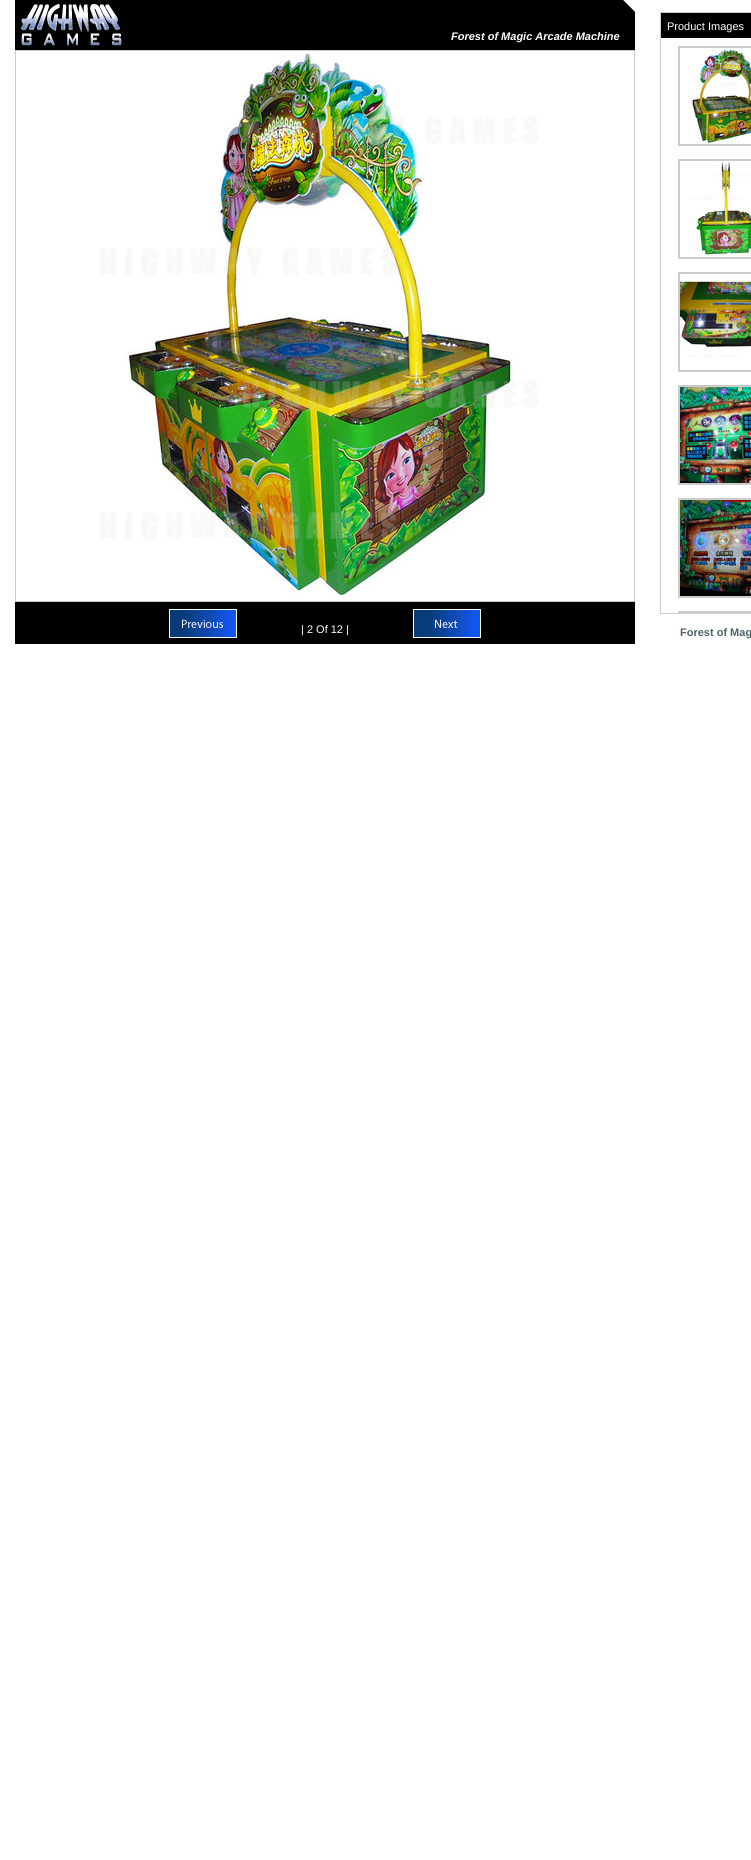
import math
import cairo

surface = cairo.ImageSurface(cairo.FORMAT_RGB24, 751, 1860)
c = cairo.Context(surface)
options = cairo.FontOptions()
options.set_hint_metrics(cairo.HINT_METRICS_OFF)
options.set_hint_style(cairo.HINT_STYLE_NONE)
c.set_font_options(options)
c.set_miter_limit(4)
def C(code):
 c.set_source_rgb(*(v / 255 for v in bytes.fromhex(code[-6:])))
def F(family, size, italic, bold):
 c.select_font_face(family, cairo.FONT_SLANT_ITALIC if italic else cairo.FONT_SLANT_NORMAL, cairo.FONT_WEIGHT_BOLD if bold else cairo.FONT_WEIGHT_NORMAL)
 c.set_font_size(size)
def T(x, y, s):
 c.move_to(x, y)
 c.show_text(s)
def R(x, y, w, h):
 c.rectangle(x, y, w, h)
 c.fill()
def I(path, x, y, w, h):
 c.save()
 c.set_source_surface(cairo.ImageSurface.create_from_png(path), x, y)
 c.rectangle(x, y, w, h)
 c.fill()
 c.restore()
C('ffffff')
c.paint()
I('1.png',15,0,620,50)
F('Liberation Sans',11,1,1)
C('ffffff')
T(451,40,'Forest of Magic Arcade Machine')
c.rectangle(15.5,50.5,619,551)
C('cccccc')
c.set_line_width(1)
c.stroke()
I('2.png',100,51,439,544)
C('000000')
R(15,602,620,42)
I('3.png',169,609,68,29)
F('Liberation Sans',11,0,0)
C('ffffff')
T(301,633,'| 2 Of 12 |')
I('4.png',413,609,68,29)
c.rectangle(660.5,12.5,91,601)
C('cccccc')
c.stroke()
C('000000')
R(661,13,90,25)
C('ffffff')
T(667,30,'Product Images')
c.rectangle(679,47,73,98)
C('cccccc')
c.set_line_width(2)
c.stroke()
I('5.png',688,48,63,96)
c.rectangle(679,160,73,98)
c.stroke()
I('6.png',689,162,62,95)
c.rectangle(679,273,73,98)
c.stroke()
I('7.png',680,274,71,85)
c.rectangle(679,386,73,98)
c.stroke()
I('8.png',680,387,71,96)
c.rectangle(679,499,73,98)
c.stroke()
I('9.png',680,500,71,96)
c.save()
c.rectangle(661,13,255,600)
c.clip()
c.rectangle(679,612,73,98)
c.stroke()
c.restore()
F('Liberation Sans',11,0,1)
C('486668')
T(680,636,'Forest of Mag')
surface.write_to_png('o.png')
